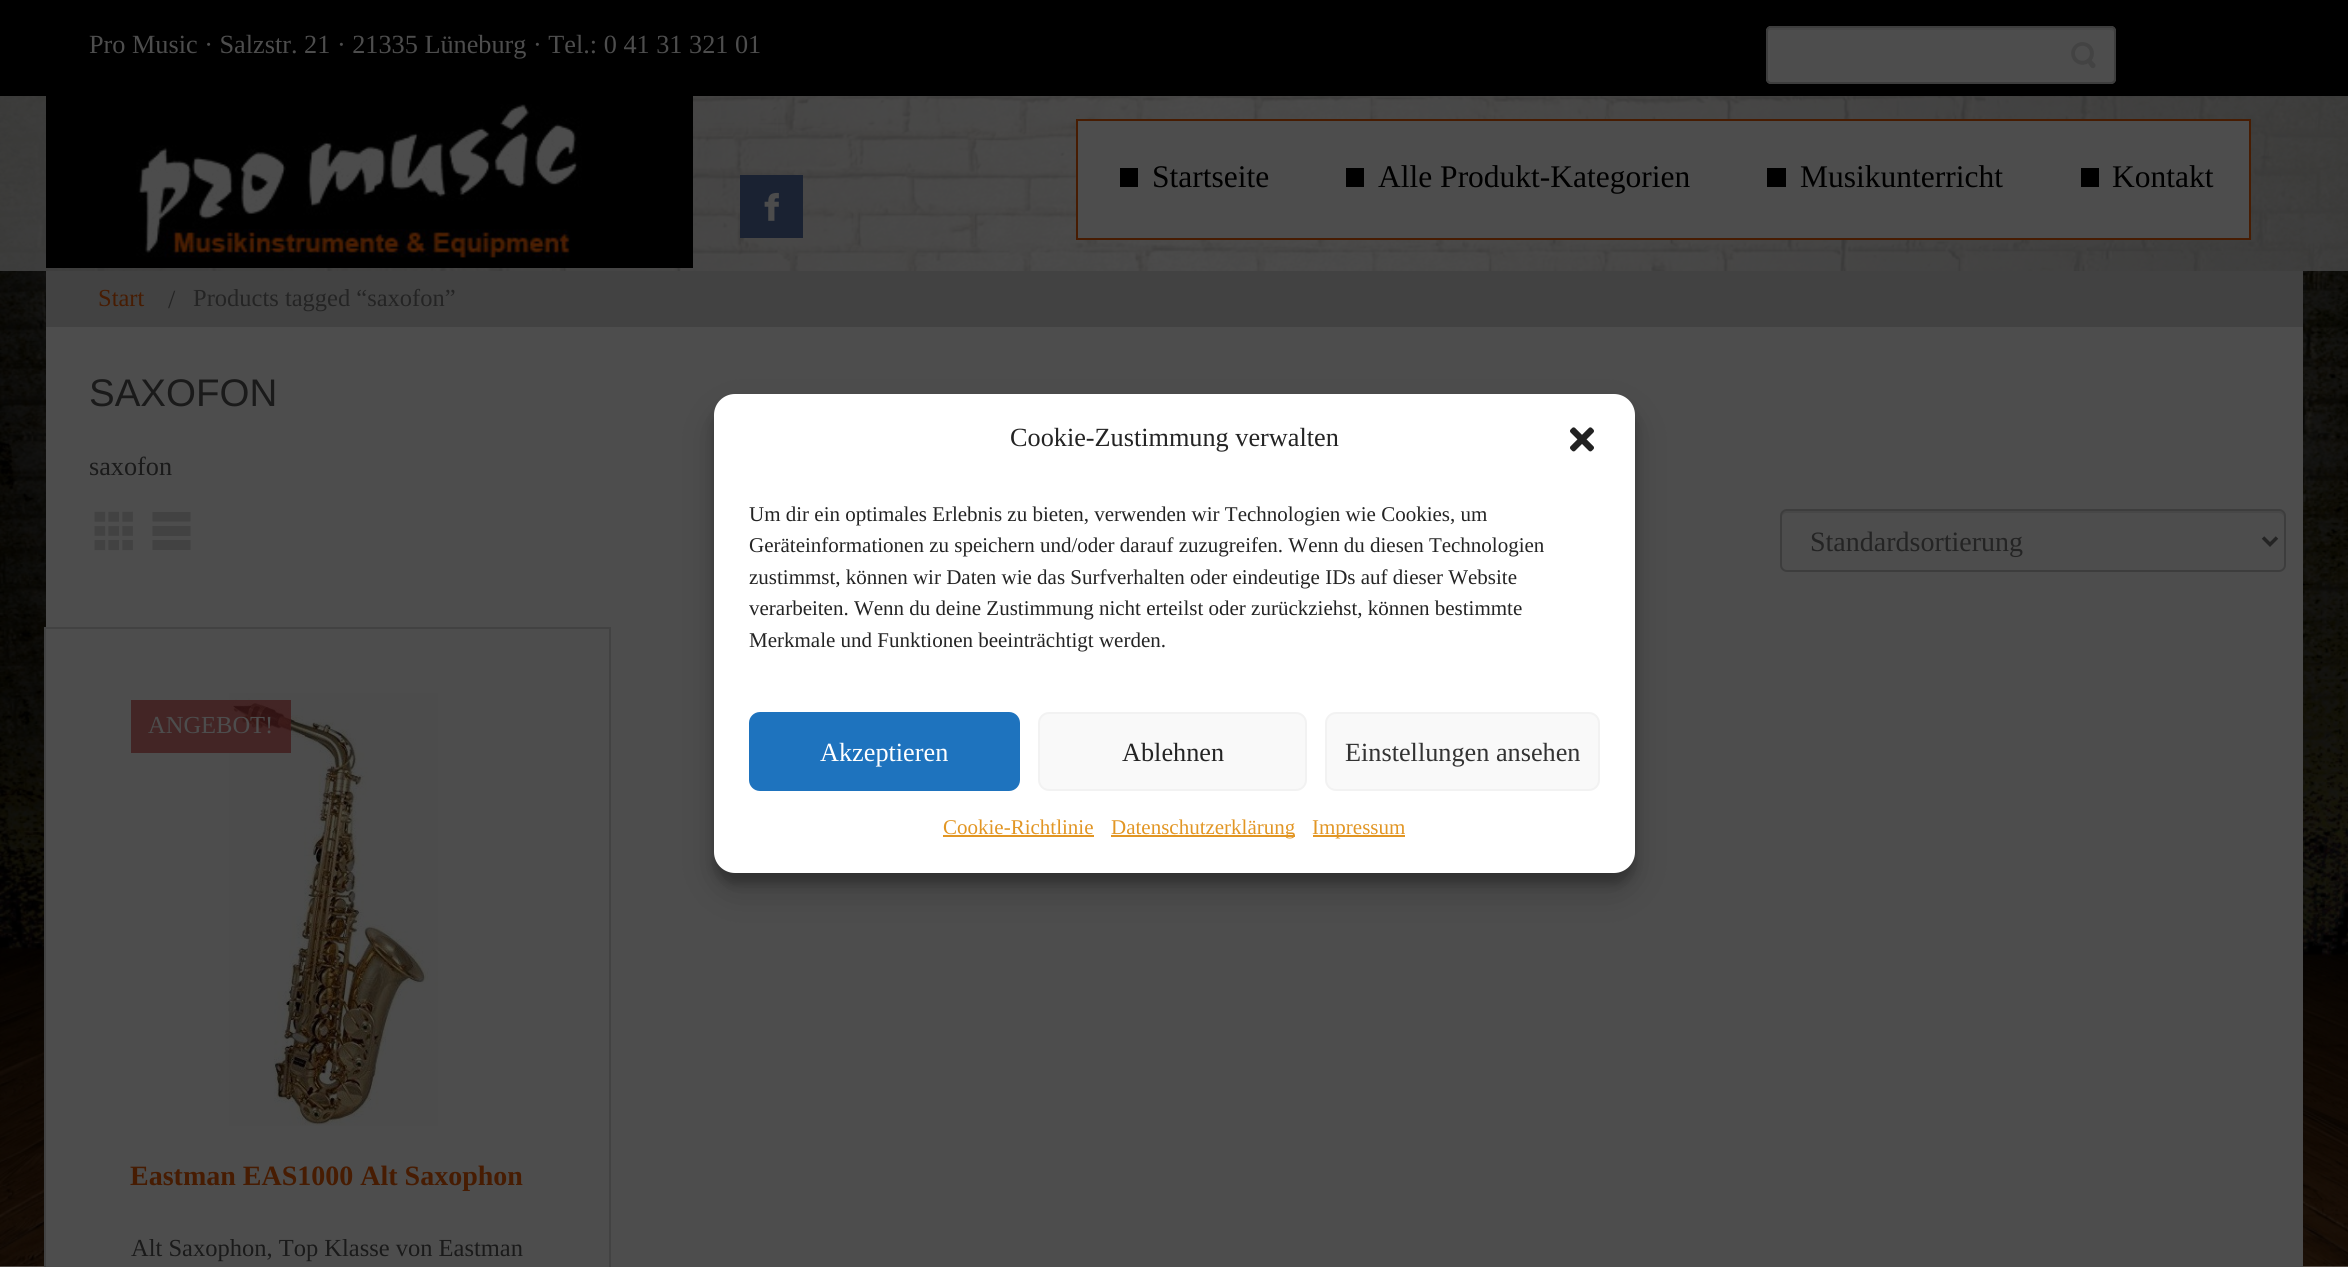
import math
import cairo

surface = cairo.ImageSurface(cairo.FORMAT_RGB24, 2348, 1267)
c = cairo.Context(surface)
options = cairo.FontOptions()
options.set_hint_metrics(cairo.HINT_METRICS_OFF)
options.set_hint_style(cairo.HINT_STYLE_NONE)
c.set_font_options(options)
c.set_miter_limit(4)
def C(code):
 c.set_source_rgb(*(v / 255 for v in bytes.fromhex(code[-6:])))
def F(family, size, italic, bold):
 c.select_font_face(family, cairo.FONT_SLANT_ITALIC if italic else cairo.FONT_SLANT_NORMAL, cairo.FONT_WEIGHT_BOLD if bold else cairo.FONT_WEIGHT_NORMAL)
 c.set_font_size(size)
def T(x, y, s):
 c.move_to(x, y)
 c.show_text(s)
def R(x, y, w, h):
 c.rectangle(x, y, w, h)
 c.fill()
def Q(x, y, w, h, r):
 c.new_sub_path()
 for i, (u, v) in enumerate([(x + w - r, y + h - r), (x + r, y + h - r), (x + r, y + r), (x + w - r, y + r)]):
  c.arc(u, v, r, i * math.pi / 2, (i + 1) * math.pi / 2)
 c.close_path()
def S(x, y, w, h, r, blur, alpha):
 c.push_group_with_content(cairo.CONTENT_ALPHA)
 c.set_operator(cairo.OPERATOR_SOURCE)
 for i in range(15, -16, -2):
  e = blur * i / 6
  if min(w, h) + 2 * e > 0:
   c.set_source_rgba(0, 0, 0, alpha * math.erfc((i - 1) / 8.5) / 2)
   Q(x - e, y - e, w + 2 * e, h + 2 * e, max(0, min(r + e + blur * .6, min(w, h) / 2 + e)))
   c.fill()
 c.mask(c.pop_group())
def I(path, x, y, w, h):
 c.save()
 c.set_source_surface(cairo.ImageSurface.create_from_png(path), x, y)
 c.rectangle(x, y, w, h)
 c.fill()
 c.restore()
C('ffffff')
c.paint()
I('1.png',0,96,2348,1171)
C('000000')
R(0,0,2348,96)
F('Liberation Serif',26.25,0,0)
C('4d4d4d')
T(89,53,'Pro Music · Salzstr. 21 · 21335 Lüneburg · Tel.: 0 41 31 321 01')
Q(1766,26,350,58,5)
c.fill()
C('474747')
c.new_path()
c.move_to(1771,30)
c.line_to(2110,30)
c.curve_to(2112,30,2114,31,2114,33)
c.line_to(2114,32)
c.curve_to(2114,30,2112,28,2110,28)
c.line_to(1772,28)
c.curve_to(1770,28,1768,30,1768,32)
c.line_to(1768,33)
c.curve_to(1768,31,1769,30,1771,30)
c.close_path()
c.fill()
Q(1767,27,348,56,4)
C('3d3d3d')
c.stroke()
I('2.png',2071,42,25,27)
c.set_source_rgba(0.302,0.302,0.302,0.75)
R(0,96,2348,175)
C('000000')
R(46,96,647,172)
I('3.png',136,104,446,154)
C('1a2232')
R(740,175,63,63)
I('4.png',764,192,15,29)
c.rectangle(1077,120,1173,119)
C('471c02')
c.stroke()
C('4d4d4d')
R(1078,121,1171,117)
C('000000')
R(1120,168,18,19)
F('Liberation Serif',31.5,0,0)
T(1152,187,'Startseite')
R(1346,168,18,19)
T(1378,187,'Alle Produkt-Kategorien')
R(1767,168,19,19)
T(1800,187,'Musikunterricht')
R(2081,168,18,19)
T(2112,187,'Kontakt')
C('4d4d4d')
R(46,327,2257,940)
C('424242')
R(46,271,2257,56)
F('Liberation Serif',24.5,0,0)
C('471c02')
T(98,306,'Start')
F('Liberation Serif',26.25,0,0)
C('242424')
T(168,308,'/')
F('Liberation Serif',24.5,0,0)
T(193,306,'Products tagged “saxofon”')
F('Liberation Sans',38.5,0,0)
C('1a1a1a')
T(89,406,'SAXOFON')
F('Liberation Serif',26.25,0,0)
T(89,475,'saxofon')
I('5.png',94,511,39,40)
C('424242')
c.new_path()
c.move_to(152.5,550)
c.line_to(152.5,540)
c.line_to(190.5,540)
c.line_to(190.5,550)
c.close_path()
c.move_to(152.5,536)
c.line_to(152.5,526)
c.line_to(190.5,526)
c.line_to(190.5,536)
c.close_path()
c.move_to(152.5,521.5)
c.line_to(152.5,512)
c.line_to(190.5,512)
c.line_to(190.5,521.5)
c.close_path()
c.fill()
C('474747')
c.new_path()
c.move_to(1787,513)
c.line_to(2278,513)
c.curve_to(2281,513,2284,515,2284,518)
c.line_to(2284,516)
c.curve_to(2284,513,2282,511,2279,511)
c.line_to(1787,511)
c.curve_to(1784,511,1782,513,1782,516)
c.line_to(1782,518)
c.curve_to(1782,515,1784,513,1787,513)
c.close_path()
c.fill()
Q(1781,510,504,61,6)
C('3d3d3d')
c.stroke()
c.new_path()
c.move_to(2263,537.5)
c.line_to(2270,544.5)
c.line_to(2277,537.5)
C('242424')
c.set_line_width(3.5)
c.stroke()
F('Liberation Serif',28,0,0)
T(1810,551,'Standardsortierung')
c.rectangle(45,628,565,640)
C('424242')
c.set_line_width(2)
c.stroke()
I('6.png',229,693,209,433)
c.set_source_rgba(0.255,0.098,0.094,0.75)
R(131,700,160,53)
F('Liberation Serif',24.5,0,0)
C('4d4d4d')
T(148,733,'ANGEBOT!')
F('Liberation Serif',28,0,1)
C('471c02')
T(130,1185,'Eastman EAS1000 Alt Saxophon')
F('Liberation Serif',24.5,0,0)
C('1a1a1a')
T(131,1256,'Alt Saxophon, Top Klasse von Eastman')
C('000000')
S(714,404,921,480,21,5,.23)
S(714,411,921,480,21,17.5,.19)
C('ffffff')
Q(714,394,921,479,21)
c.fill()
F('Liberation Serif',26.25,0,0)
C('242424')
T(1010,446,'Cookie-Zustimmung verwalten')
I('7.png',1570,427,24,25)
F('Liberation Serif',21,0,0)
T(749,521,'Um dir ein optimales Erlebnis zu bieten, verwenden wir Technologien wie Cookies, um')
T(749,552,'Geräteinformationen zu speichern und/oder darauf zuzugreifen. Wenn du diesen Technologien')
T(749,584,'zustimmst, können wir Daten wie das Surfverhalten oder eindeutige IDs auf dieser Website')
T(749,615,'verarbeiten. Wenn du deine Zustimmung nicht erteilst oder zurückziehst, können bestimmte')
T(749,647,'Merkmale und Funktionen beeinträchtigt werden.')
C('1e73be')
Q(750,713,269,77,10)
c.fill_preserve()
c.stroke()
F('Liberation Serif',26.25,0,0)
C('ffffff')
T(820,761,'Akzeptieren')
C('f9f9f9')
Q(1039,713,267,77,10)
c.fill_preserve()
C('f2f2f2')
c.stroke()
C('242424')
T(1122,761,'Ablehnen')
C('f9f9f9')
Q(1326,713,273,77,10)
c.fill_preserve()
C('f2f2f2')
c.stroke()
C('333333')
T(1345,761,'Einstellungen ansehen')
F('Liberation Serif',21,0,0)
C('e29624')
T(943,834,'Cookie-Richtlinie')
R(943,835,151,2)
R(1111,835,184,2)
T(1111,834,'Datenschutzerklärung')
R(1313,835,92,2)
T(1312,834,'Impressum')
surface.write_to_png('o.png')
